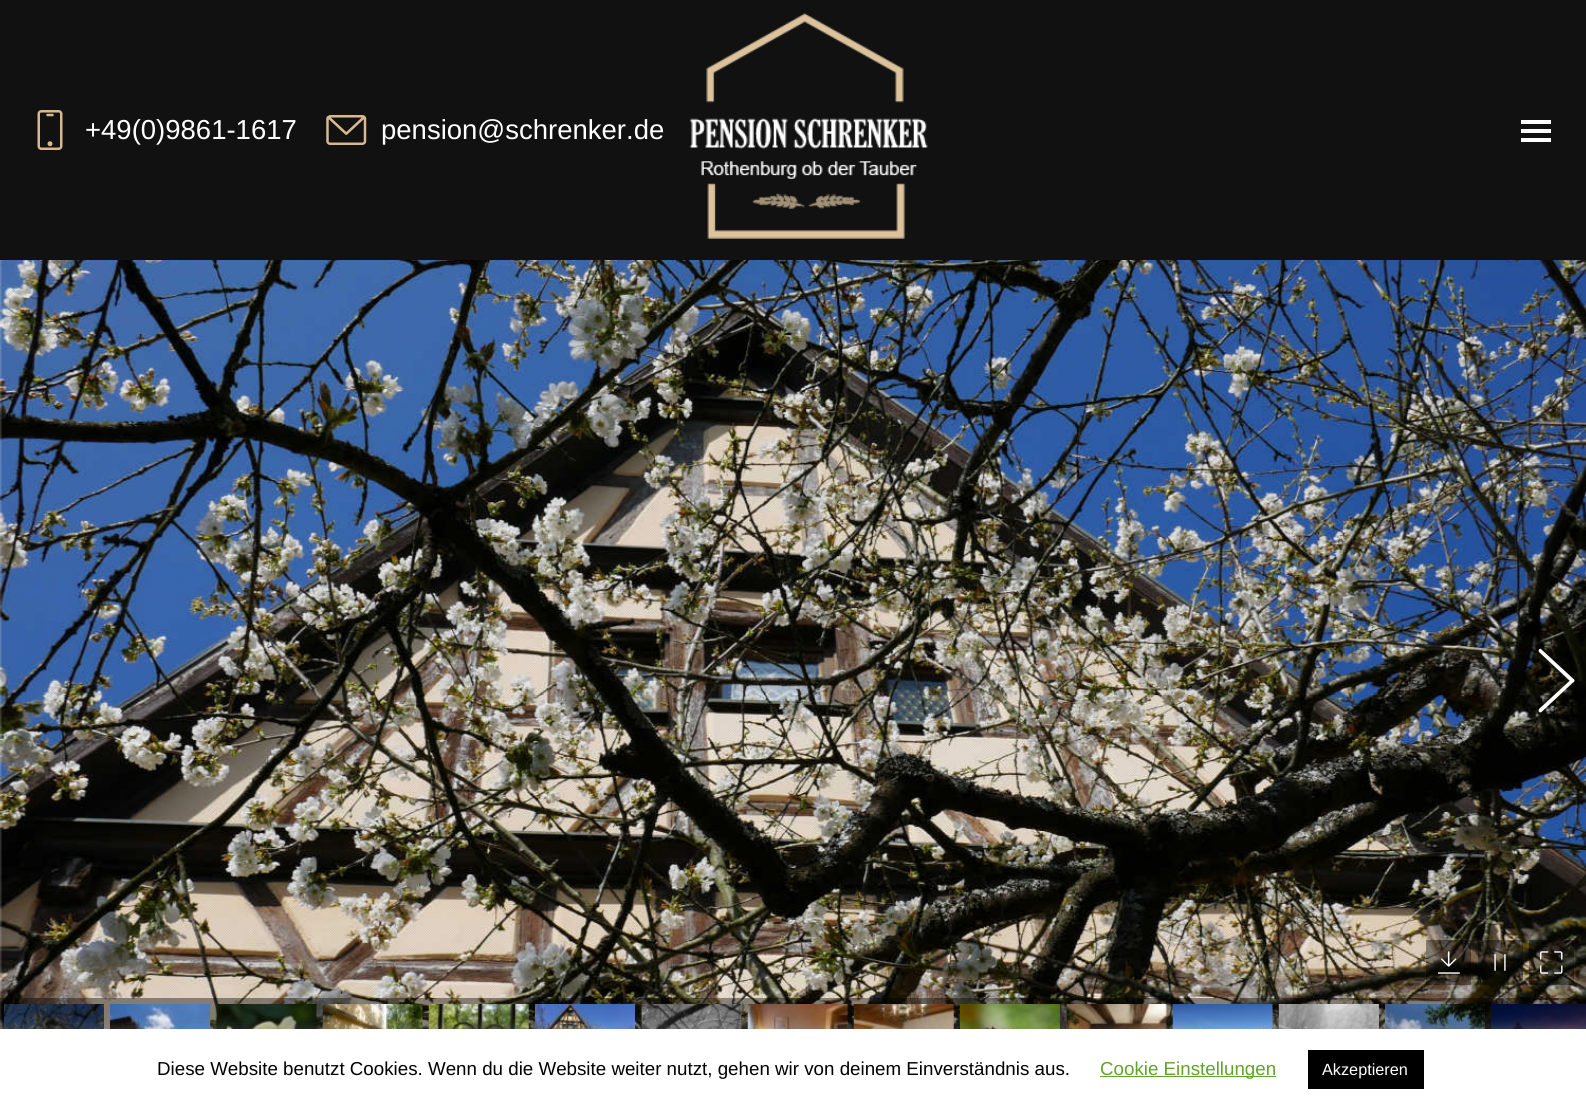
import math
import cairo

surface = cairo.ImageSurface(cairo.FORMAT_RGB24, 1586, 1110)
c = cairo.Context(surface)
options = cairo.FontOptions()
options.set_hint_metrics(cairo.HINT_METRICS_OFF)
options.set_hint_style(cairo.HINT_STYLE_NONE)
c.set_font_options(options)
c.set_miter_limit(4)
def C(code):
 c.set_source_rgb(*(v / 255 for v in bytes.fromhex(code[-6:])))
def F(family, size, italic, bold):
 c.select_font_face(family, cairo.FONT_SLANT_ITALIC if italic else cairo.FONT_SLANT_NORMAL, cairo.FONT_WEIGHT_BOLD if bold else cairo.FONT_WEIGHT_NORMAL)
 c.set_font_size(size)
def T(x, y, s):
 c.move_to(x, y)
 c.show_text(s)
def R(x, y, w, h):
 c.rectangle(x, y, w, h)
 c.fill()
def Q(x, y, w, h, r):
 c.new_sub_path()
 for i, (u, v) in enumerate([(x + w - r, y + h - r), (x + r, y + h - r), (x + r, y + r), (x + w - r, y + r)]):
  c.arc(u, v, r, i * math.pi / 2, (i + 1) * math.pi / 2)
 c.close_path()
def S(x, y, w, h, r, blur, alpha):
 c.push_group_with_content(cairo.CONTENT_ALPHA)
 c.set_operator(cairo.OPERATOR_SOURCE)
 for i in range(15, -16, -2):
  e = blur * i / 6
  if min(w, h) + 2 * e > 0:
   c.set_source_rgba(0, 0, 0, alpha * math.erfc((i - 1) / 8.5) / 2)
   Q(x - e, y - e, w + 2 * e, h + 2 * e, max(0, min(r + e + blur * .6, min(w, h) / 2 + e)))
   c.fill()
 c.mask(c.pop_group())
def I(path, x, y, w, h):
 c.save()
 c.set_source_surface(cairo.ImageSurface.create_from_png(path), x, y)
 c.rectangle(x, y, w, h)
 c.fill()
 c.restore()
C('ffffff')
c.paint()
C('111111')
R(0,0,1586,260)
I('1.png',37,110,26,40)
F('Liberation Sans',27.5,0,0)
C('ffffff')
T(85,139,'+49(0)9861-1617')
I('2.png',326,115,41,30)
T(381,139,'pension@schrenker.de')
I('3.png',689,13,239,226)
R(1521,120,30,4)
R(1521,129,30,4)
R(1521,138,30,4)
I('4.png',0,260,1586,769)
I('5.png',0,260,1586,769)
c.new_path()
c.move_to(1541.5,649.5)
c.line_to(1573.5,679)
c.curve_to(1574.5,680,1574.5,681,1574,682)
c.curve_to(1573,682.5,1572,682.5,1571,682)
c.line_to(1539,652)
c.curve_to(1538.5,651.5,1538.5,650,1539,649.5)
c.curve_to(1539.5,648.5,1541,648.5,1541.5,649.5)
c.close_path()
c.fill()
C('000000')
S(1533,694,47,4,2,3,.3)
C('ffffff')
c.new_path()
c.move_to(1539,709)
c.line_to(1571,679.5)
c.curve_to(1572,678.5,1573,678.5,1574,679.5)
c.curve_to(1574.5,680,1574.5,681.5,1573.5,682)
c.line_to(1541.5,712)
c.curve_to(1541,712.5,1539.5,712.5,1539,712)
c.curve_to(1538.5,711,1538.5,710,1539,709)
c.close_path()
c.fill()
c.set_source_rgba(0,0,0,0.4)
R(1426,940,45,45)
I('6.png',1438,951,22,23)
R(1478,940,45,45)
I('7.png',1494,954,12,17)
R(1529,940,45,45)
I('8.png',1540,951,23,23)
R(0,998,1586,31)
I('9.png',4,1004,100,25)
c.set_source_rgba(0,0,0,0.5)
R(4,1004,100,25)
I('10.png',110,1004,100,25)
I('11.png',215,1004,102,25)
I('12.png',322,1004,101,25)
I('13.png',428,1004,101,25)
I('14.png',535,1004,100,25)
I('15.png',640,1004,102,25)
I('16.png',747,1004,101,25)
I('17.png',853,1004,101,25)
I('18.png',960,1004,100,25)
I('19.png',1065,1004,102,25)
I('20.png',1172,1004,101,25)
I('21.png',1278,1004,101,25)
I('22.png',1385,1004,100,25)
I('23.png',1491,1004,95,25)
C('acabab')
S(0,1028,1586,81,0,6,.3)
C('ffffff')
R(0,1029,1586,81)
F('Liberation Sans',18.75,0,0)
C('000000')
T(157,1075,'Diese Website benutzt Cookies. Wenn du die Website weiter nutzt, gehen wir von deinem Einverständnis aus.')
C('62a329')
R(1100,1076,176,1)
T(1100,1075,'Cookie Einstellungen')
C('000000')
R(1308,1050,116,39)
F('Liberation Sans',16.25,0,0)
C('ffffff')
T(1322,1075,'Akzeptieren')
surface.write_to_png('o.png')
